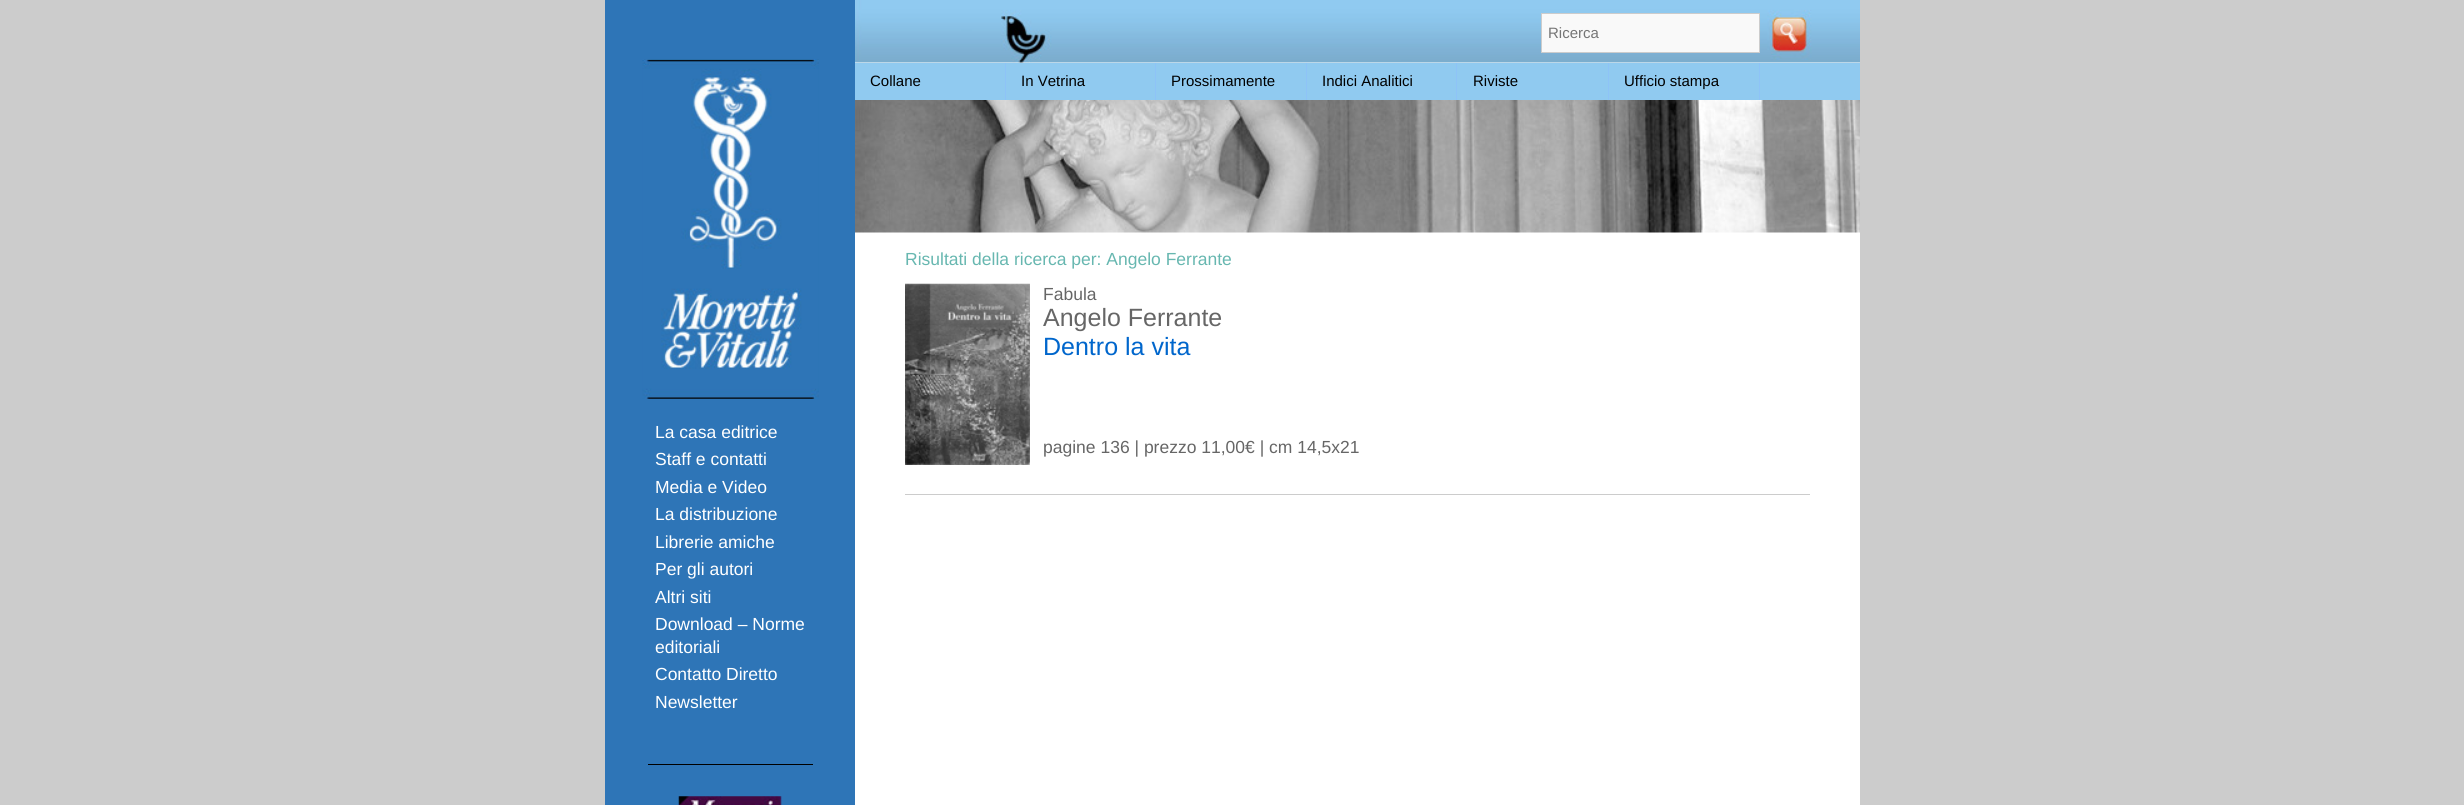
import math
import cairo

surface = cairo.ImageSurface(cairo.FORMAT_RGB24, 2464, 805)
c = cairo.Context(surface)
options = cairo.FontOptions()
options.set_hint_metrics(cairo.HINT_METRICS_OFF)
options.set_hint_style(cairo.HINT_STYLE_NONE)
c.set_font_options(options)
c.set_miter_limit(4)
def C(code):
 c.set_source_rgb(*(v / 255 for v in bytes.fromhex(code[-6:])))
def F(family, size, italic, bold):
 c.select_font_face(family, cairo.FONT_SLANT_ITALIC if italic else cairo.FONT_SLANT_NORMAL, cairo.FONT_WEIGHT_BOLD if bold else cairo.FONT_WEIGHT_NORMAL)
 c.set_font_size(size)
def T(x, y, s):
 c.move_to(x, y)
 c.show_text(s)
def R(x, y, w, h):
 c.rectangle(x, y, w, h)
 c.fill()
def I(path, x, y, w, h):
 c.save()
 c.set_source_surface(cairo.ImageSurface.create_from_png(path), x, y)
 c.rectangle(x, y, w, h)
 c.fill()
 c.restore()
C('cccccc')
c.paint()
C('ffffff')
R(855,62,1005,743)
I('1.png',855,0,1005,63)
C('f9f9f9')
c.rectangle(1541.5,13.5,218,39)
c.fill_preserve()
C('cccccc')
c.set_line_width(1)
c.stroke()
F('Liberation Sans',15,0,0)
C('757575')
T(1548,38,'Ricerca')
C('90caf0')
R(855,63,1005,37)
C('8ec3f7')
R(1005,63,1,37)
C('000000')
T(870,86,'Collane')
C('8ec3f7')
R(1155,63,1,37)
C('000000')
T(1021,86,'In Vetrina')
C('8ec3f7')
R(1306,63,1,37)
C('000000')
T(1171,86,'Prossimamente')
C('8ec3f7')
R(1456,63,1,37)
C('000000')
T(1322,86,'Indici Analitici')
C('8ec3f7')
R(1608,63,1,37)
C('000000')
T(1473,86,'Riviste')
C('8ec3f7')
R(1759,63,1,37)
C('000000')
T(1624,86,'Ufficio stampa')
I('2.png',855,100,1005,133)
F('Liberation Sans',17.5,0,0)
C('67b7b0')
T(905,265,'Risultati della ricerca per: Angelo Ferrante')
I('3.png',905,283,125,182)
C('666666')
T(1043,300,'Fabula')
F('Liberation Sans',25,0,0)
T(1043,326,'Angelo Ferrante')
C('0066cc')
T(1043,355,'Dentro la vita')
F('Liberation Sans',17.5,0,0)
C('666666')
T(1043,453,'pagine 136 | prezzo 11,00€ | cm 14,5x21')
C('cccccc')
R(905,494,905,1)
C('2e75b7')
R(605,0,250,805)
I('4.png',642,59,177,340)
C('ffffff')
T(655,438,'La casa editrice')
T(655,465,'Staff e contatti')
T(655,493,'Media e Video')
T(655,520,'La distribuzione')
T(655,548,'Librerie amiche')
T(655,575,'Per gli autori')
T(655,603,'Altri siti')
T(655,630,'Download – Norme')
T(655,653,'editoriali')
T(655,680,'Contatto Diretto')
T(655,708,'Newsletter')
C('000000')
R(648,764,165,1)
I('5.png',678,796,104,9)
surface.write_to_png('o.png')
